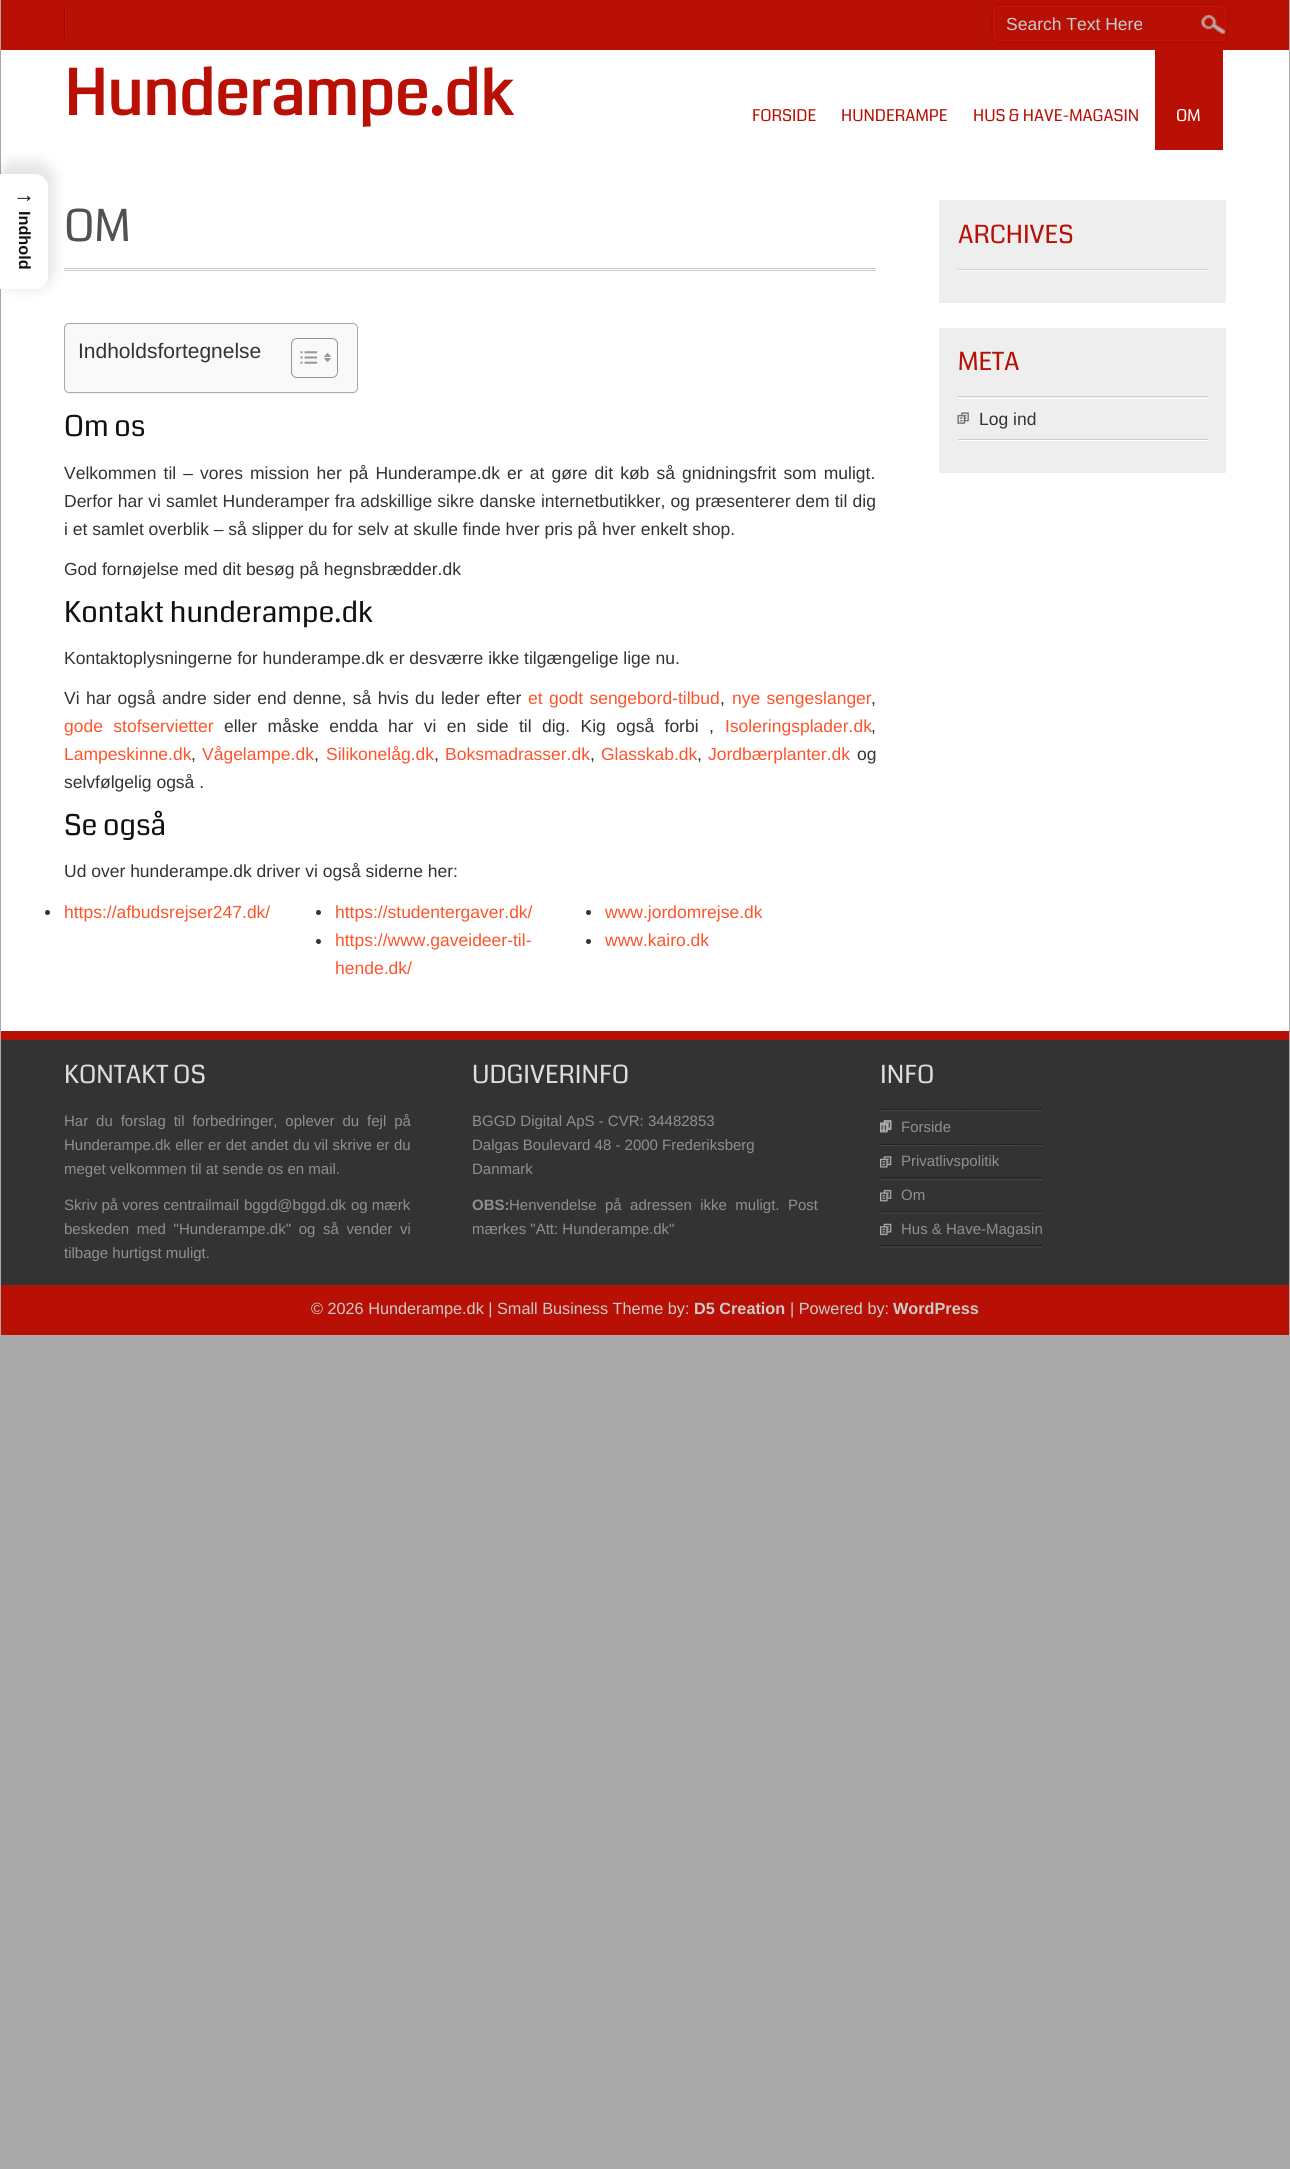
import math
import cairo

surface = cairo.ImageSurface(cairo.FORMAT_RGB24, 1290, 2169)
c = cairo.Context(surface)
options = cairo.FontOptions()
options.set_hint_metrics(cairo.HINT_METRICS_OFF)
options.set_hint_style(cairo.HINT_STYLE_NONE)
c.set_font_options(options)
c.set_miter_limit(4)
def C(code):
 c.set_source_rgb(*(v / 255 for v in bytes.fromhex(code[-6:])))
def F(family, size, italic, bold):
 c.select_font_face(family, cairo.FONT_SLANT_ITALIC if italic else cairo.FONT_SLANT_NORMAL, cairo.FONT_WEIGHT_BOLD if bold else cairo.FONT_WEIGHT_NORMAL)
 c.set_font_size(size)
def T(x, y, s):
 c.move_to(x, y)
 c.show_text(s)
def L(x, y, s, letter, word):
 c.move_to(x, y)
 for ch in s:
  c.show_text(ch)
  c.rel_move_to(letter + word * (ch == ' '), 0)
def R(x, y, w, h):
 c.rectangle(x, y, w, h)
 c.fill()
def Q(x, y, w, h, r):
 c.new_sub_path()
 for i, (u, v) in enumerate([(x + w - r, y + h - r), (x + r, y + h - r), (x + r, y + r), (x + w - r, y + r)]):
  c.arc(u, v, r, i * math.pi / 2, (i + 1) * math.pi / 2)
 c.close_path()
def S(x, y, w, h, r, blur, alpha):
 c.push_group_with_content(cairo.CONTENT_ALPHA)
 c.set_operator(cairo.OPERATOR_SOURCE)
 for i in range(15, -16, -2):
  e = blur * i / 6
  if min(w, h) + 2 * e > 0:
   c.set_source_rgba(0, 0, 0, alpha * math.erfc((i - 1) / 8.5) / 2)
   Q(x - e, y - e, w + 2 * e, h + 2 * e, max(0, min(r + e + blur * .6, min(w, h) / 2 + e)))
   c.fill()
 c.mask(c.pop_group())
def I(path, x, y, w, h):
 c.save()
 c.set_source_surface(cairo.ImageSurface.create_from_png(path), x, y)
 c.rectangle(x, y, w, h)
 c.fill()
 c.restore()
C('aaaaaa')
c.paint()
C('ffffff')
R(1,50,1288,981)
C('cccccc')
R(64,268,812,3)
C('ffffff')
R(64,269,812,1)
C('000000')
S(-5,161,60,128,19,6,.1)
C('ffffff')
c.new_path()
c.move_to(0,174)
c.line_to(35,174)
c.curve_to(42,174,48,180,48,187)
c.line_to(48,276)
c.curve_to(48,283,42,289,35,289)
c.line_to(0,289)
c.close_path()
c.fill()
F('Liberation Sans',22,0,1)
C('111111')
T(13,202,'→')
F('Liberation Sans',16.25,0,1)
c.save()
c.translate(19,211)
c.rotate(90 * math.pi / 180)
T(0,0,'Indhold')
c.restore()
C('b81005')
R(1,0,1288,50)
C('d61003')
R(65,6,1,32)
C('940d05')
R(64,6,1,32)
c.save()
c.set_fill_rule(cairo.FILL_RULE_EVEN_ODD)
c.new_path()
c.move_to(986,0)
c.line_to(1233,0)
c.line_to(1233,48)
c.line_to(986,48)
c.close_path()
c.move_to(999,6)
c.line_to(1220,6)
c.curve_to(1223.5,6,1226,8.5,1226,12)
c.line_to(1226,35)
c.curve_to(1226,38.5,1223.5,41,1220,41)
c.line_to(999,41)
c.curve_to(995.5,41,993,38.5,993,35)
c.line_to(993,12)
c.curve_to(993,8.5,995.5,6,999,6)
c.close_path()
c.clip()
C('940d05')
S(993,6,233,35,6,2,1)
c.restore()
I('1.png',1201,15,24,19)
Q(993.5,6.5,232,34,5.5)
C('d61003')
c.set_line_width(1)
c.stroke()
F('Liberation Sans',17.5,0,0)
C('cccccc')
T(1006,30,'Search Text Here')
F('Coda',62.5,0,1)
C('b81005')
T(64,115,'Hunderampe.dk')
F('Coda',16.25,0,0)
T(752,121,'FORSIDE')
T(841,121,'HUNDERAMPE')
T(973,121,'HUS & HAVE-MAGASIN')
R(1155,50,68,100)
C('ffffff')
T(1176,121,'OM')
F('Coda',44,0,0)
C('515151')
T(64,241,'OM')
C('000000')
S(64,324,294,70,5,.5,.05)
C('f9f9f9')
Q(64.5,323.5,293,69,4.5)
c.fill_preserve()
C('aaaaaa')
c.stroke()
F('Liberation Sans',21,0,0)
C('333333')
T(78,358,'Indholdsfortegnelse')
Q(291.5,338.5,46,39,5.5)
C('999191')
c.stroke()
I('2.png',300,351,18,13)
I('3.png',324,353,7,9)
F('Coda',28.75,0,0)
C('111111')
T(64,436,'Om os')
F('Liberation Sans',17.5,0,0)
C('333333')
L(64,479,'Velkommen til – vores mission her på Hunderampe.dk er at gøre dit køb så gnidningsfrit som muligt.',0,2.25)
L(64,507,'Derfor har vi samlet Hunderamper fra adskillige sikre danske internetbutikker, og præsenterer dem til dig',0,.25)
T(64,535,'i et samlet overblik – så slipper du for selv at skulle finde hver pris på hver enkelt shop.')
T(64,575,'God fornøjelse med dit besøg på hegnsbrædder.dk')
F('Coda',28.75,0,0)
C('111111')
T(64,622,'Kontakt hunderampe.dk')
F('Liberation Sans',17.5,0,0)
C('333333')
T(64,664,'Kontaktoplysningerne for hunderampe.dk er desværre ikke tilgængelige lige nu.')
L(64,704,'Vi har også andre sider end denne, så hvis du leder efter',0,1.5)
C('fc542b')
L(528,704,'et godt sengebord-tilbud',0,1.5)
C('333333')
T(720,704,',')
C('fc542b')
L(732,704,'nye sengeslanger',0,1.5)
C('333333')
T(871,704,',')
C('fc542b')
L(64,732,'gode stofservietter',0,5.5)
C('333333')
L(224,732,'eller måske endda',0,5.5)
L(388,732,'har vi en side til dig. Kig også forbi ,',0,5.5)
C('fc542b')
T(725,732,'Isoleringsplader.dk')
C('333333')
T(871,732,',')
C('fc542b')
T(64,760,'Lampeskinne.dk')
C('333333')
T(191,760,',')
C('fc542b')
T(202,760,'Vågelampe.dk')
C('333333')
T(314,760,',')
C('fc542b')
T(326,760,'Silikonelåg.dk')
C('333333')
T(434,760,',')
C('fc542b')
T(445,760,'Boksmadrasser.dk')
C('333333')
T(590,760,',')
C('fc542b')
T(601,760,'Glasskab.dk')
C('333333')
T(697,760,',')
C('fc542b')
T(708,760,'Jordbærplanter.dk')
C('333333')
T(857,760,'og')
T(64,788,'selvfølgelig også .')
F('Coda',28.75,0,0)
C('111111')
T(64,835,'Se også')
F('Liberation Sans',17.5,0,0)
C('333333')
T(64,877,'Ud over hunderampe.dk driver vi også siderne her:')
c.new_path()
c.arc(47.5,912.5,2.5,0,2 * math.pi)
c.fill()
C('fc542b')
T(64,918,'https://afbudsrejser247.dk/')
C('333333')
c.new_path()
c.arc(318.5,912.5,2.5,0,2 * math.pi)
c.fill()
C('fc542b')
T(335,918,'https://studentergaver.dk/')
C('333333')
c.new_path()
c.arc(318.5,941.5,2.5,0,2 * math.pi)
c.fill()
C('fc542b')
T(335,946,'https://www.gaveideer-til-')
T(335,974,'hende.dk/')
C('333333')
c.new_path()
c.arc(588.5,912.5,2.5,0,2 * math.pi)
c.fill()
C('fc542b')
T(605,918,'www.jordomrejse.dk')
C('333333')
c.new_path()
c.arc(588.5,941.5,2.5,0,2 * math.pi)
c.fill()
C('fc542b')
T(605,946,'www.kairo.dk')
C('eeeeee')
R(939,200,287,103)
F('Coda',25,0,0)
C('b81005')
T(958,243,'ARCHIVES')
C('cccccc')
R(958,269,250,1)
C('ffffff')
R(958,270,250,1)
C('eeeeee')
R(939,328,287,145)
C('b81005')
T(958,370,'META')
C('cccccc')
R(958,396,250,1)
C('ffffff')
R(958,440,250,1)
I('4.png',957,412,12,12)
R(958,398,250,1)
C('cccccc')
R(958,439,250,1)
F('Liberation Sans',17.5,0,0)
C('333333')
T(979,425,'Log ind')
R(1,1040,1288,245)
C('b81005')
R(1,1031,1288,9)
F('Coda',25,0,0)
C('dddddd')
T(64,1083,'KONTAKT OS')
F('Liberation Sans',15,0,0)
C('8f8f8e')
L(64,1126,'Har du forslag til forbedringer, oplever du fejl på',0,3.75)
L(64,1150,'Hunderampe.dk eller er det andet du vil skrive er du',0,.25)
T(64,1174,'meget velkommen til at sende os en mail.')
T(64,1210,'Skriv på vores centrailmail')
T(244,1210,'bggd@bggd.dk')
T(351,1210,'og mærk')
L(64,1234,'beskeden med "Hunderampe.dk" og så vender vi',0,3.5)
T(64,1258,'tilbage hurtigst muligt.')
F('Coda',25,0,0)
C('dddddd')
T(472,1083,'UDGIVERINFO')
F('Liberation Sans',15,0,0)
C('8f8f8e')
T(472,1126,'BGGD Digital ApS - CVR: 34482853')
T(472,1150,'Dalgas Boulevard 48 - 2000 Frederiksberg')
T(472,1174,'Danmark')
F('Liberation Sans',15,0,1)
T(472,1210,'OBS:')
F('Liberation Sans',15,0,0)
L(509,1210,'Henvendelse på adressen ikke muligt. Post',0,4.25)
T(472,1234,'mærkes "Att: Hunderampe.dk"')
F('Coda',25,0,0)
C('dddddd')
T(880,1083,'INFO')
I('5.png',880,1119,12,13)
c.new_path()
c.move_to(880,1109.5)
c.line_to(1042.5,1109.5)
C('111111')
c.set_line_width(1.2)
c.set_dash([1.25,1.25])
c.stroke()
c.new_path()
c.move_to(880,1247)
c.line_to(1042.5,1247)
C('555555')
c.stroke()
I('6.png',880,1121,12,12)
c.new_path()
c.move_to(880,1110.5)
c.line_to(1042.5,1110.5)
c.stroke()
c.new_path()
c.move_to(880,1144.5)
c.line_to(1042.5,1144.5)
C('111111')
c.stroke()
F('Liberation Sans',15,0,0)
C('8f8f8e')
T(901,1132,'Forside')
I('7.png',880,1156,12,12)
c.new_path()
c.move_to(880,1145.5)
c.line_to(1042.5,1145.5)
C('555555')
c.stroke()
c.new_path()
c.move_to(880,1178)
c.line_to(1042.5,1178)
C('111111')
c.stroke()
C('8f8f8e')
T(901,1166,'Privatlivspolitik')
I('5.png',880,1189,12,13)
c.new_path()
c.move_to(880,1179.5)
c.line_to(1042.5,1179.5)
C('555555')
c.stroke()
c.new_path()
c.move_to(880,1212)
c.line_to(1042.5,1212)
C('111111')
c.stroke()
C('8f8f8e')
T(901,1200,'Om')
I('8.png',880,1223,12,13)
c.new_path()
c.move_to(880,1213)
c.line_to(1042.5,1213)
C('555555')
c.stroke()
c.new_path()
c.move_to(880,1245.5)
c.line_to(1042.5,1245.5)
C('111111')
c.stroke()
C('8f8f8e')
T(901,1234,'Hus & Have-Magasin')
C('b81005')
R(1,1285,1288,50)
F('Liberation Sans',16.25,0,0)
C('cccccc')
T(311,1314,'© 2026 Hunderampe.dk | Small Business Theme by:')
F('Liberation Sans',16.25,0,1)
T(694,1314,'D5 Creation')
F('Liberation Sans',16.25,0,0)
T(790,1314,'| Powered by:')
F('Liberation Sans',16.25,0,1)
T(893,1314,'WordPress')
surface.write_to_png('o.png')
